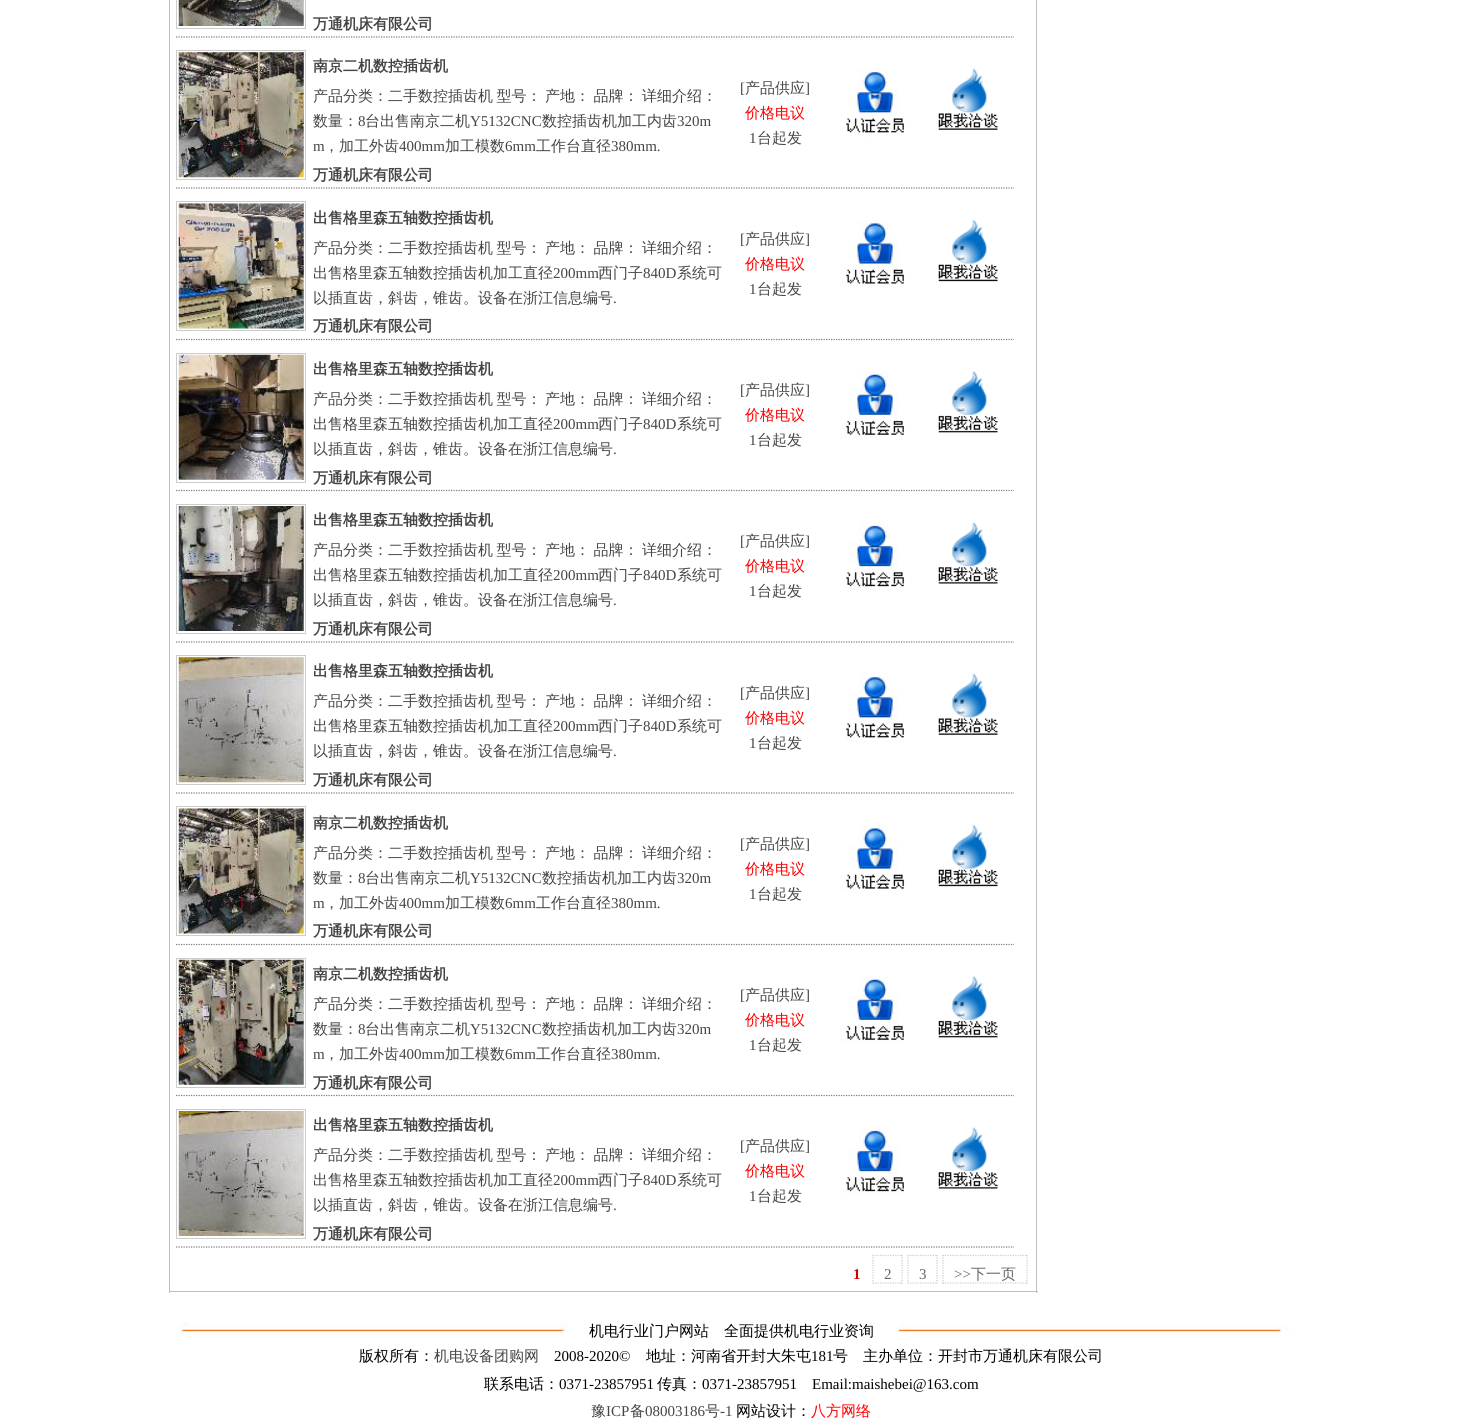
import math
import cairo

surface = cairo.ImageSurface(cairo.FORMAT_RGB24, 1462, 1425)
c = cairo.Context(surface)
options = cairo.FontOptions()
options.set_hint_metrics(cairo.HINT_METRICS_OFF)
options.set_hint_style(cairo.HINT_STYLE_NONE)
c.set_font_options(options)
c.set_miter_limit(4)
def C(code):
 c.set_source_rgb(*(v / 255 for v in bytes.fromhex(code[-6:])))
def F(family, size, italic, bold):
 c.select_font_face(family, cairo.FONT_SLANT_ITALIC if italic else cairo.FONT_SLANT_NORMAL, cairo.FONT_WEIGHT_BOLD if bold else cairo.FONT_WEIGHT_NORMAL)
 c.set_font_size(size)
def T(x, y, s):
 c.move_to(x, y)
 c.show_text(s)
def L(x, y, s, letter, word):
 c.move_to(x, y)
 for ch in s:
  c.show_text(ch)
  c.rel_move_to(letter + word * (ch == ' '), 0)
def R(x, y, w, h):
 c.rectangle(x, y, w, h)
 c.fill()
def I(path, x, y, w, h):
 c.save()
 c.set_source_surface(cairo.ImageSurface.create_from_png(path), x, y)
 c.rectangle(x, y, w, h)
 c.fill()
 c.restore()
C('ffffff')
c.paint()
C('c0c0c0')
R(1036,0,1,1293)
R(169,1291,869,1)
R(169,0,1,1293)
c.new_path()
c.move_to(176,37)
c.line_to(1014,37)
C('7c7c7c')
c.set_line_width(1.2)
c.set_dash([1.25,1.25])
c.stroke()
c.rectangle(176.5,-.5,129,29)
C('cccccc')
c.set_line_width(1)
c.set_dash([])
c.stroke()
I('1.png',178,0,126,26)
F('WenQuanYi Zen Hei',15,0,1)
C('454545')
T(313,29,'万通机床有限公司')
c.new_path()
c.move_to(176,188)
c.line_to(1014,188)
C('7c7c7c')
c.set_line_width(1.2)
c.set_dash([1.25,1.25])
c.stroke()
c.rectangle(176.5,50.5,129,129)
C('cccccc')
c.set_line_width(1)
c.set_dash([])
c.stroke()
I('2.png',178,52,126,126)
C('454545')
T(313,71,'南京二机数控插齿机')
F('WenQuanYi Zen Hei Medium',15,0,0)
L(313,101,'产品分类：二手数控插齿机 型号： 产地： 品牌： 详细介绍：',0,-1)
T(313,126,'数量：')
F('Liberation Serif',15,0,0)
T(358,126,'8')
F('WenQuanYi Zen Hei Medium',15,0,0)
T(365,126,'台出售南京二机')
F('Liberation Serif',15,0,0)
T(470,126,'Y5132CNC')
F('WenQuanYi Zen Hei Medium',15,0,0)
T(542,126,'数控插齿机加工内齿')
F('Liberation Serif',15,0,0)
T(677,126,'320m')
T(313,151,'m')
F('WenQuanYi Zen Hei Medium',15,0,0)
T(324,151,'，加工外齿')
F('Liberation Serif',15,0,0)
T(399,151,'400mm')
F('WenQuanYi Zen Hei Medium',15,0,0)
T(445,151,'加工模数')
F('Liberation Serif',15,0,0)
T(505,151,'6mm')
F('WenQuanYi Zen Hei Medium',15,0,0)
T(536,151,'工作台直径')
F('Liberation Serif',15,0,0)
T(611,151,'380mm.')
F('WenQuanYi Zen Hei',15,0,1)
T(313,180,'万通机床有限公司')
F('Liberation Serif',15,0,0)
T(740,93,'[')
F('WenQuanYi Zen Hei Medium',15,0,0)
T(745,93,'产品供应')
F('Liberation Serif',15,0,0)
T(805,93,']')
F('WenQuanYi Zen Hei Medium',15,0,0)
C('ff0000')
T(745,118,'价格电议')
F('Liberation Serif',15,0,0)
C('454545')
T(749,143,'1')
F('WenQuanYi Zen Hei Medium',15,0,0)
T(757,143,'台起发')
I('3.png',846,68,59,69)
I('4.png',938,68,60,62)
c.new_path()
c.move_to(176,339.5)
c.line_to(1014,339.5)
C('7c7c7c')
c.set_line_width(1.2)
c.set_dash([1.25,1.25])
c.stroke()
c.rectangle(176.5,201.5,129,129)
C('cccccc')
c.set_line_width(1)
c.set_dash([])
c.stroke()
I('5.png',178,203,126,126)
F('WenQuanYi Zen Hei',15,0,1)
C('454545')
T(313,223,'出售格里森五轴数控插齿机')
F('WenQuanYi Zen Hei Medium',15,0,0)
L(313,253,'产品分类：二手数控插齿机 型号： 产地： 品牌： 详细介绍：',0,-1)
T(313,278,'出售格里森五轴数控插齿机加工直径')
F('Liberation Serif',15,0,0)
T(553,278,'200mm')
F('WenQuanYi Zen Hei Medium',15,0,0)
T(598,278,'西门子')
F('Liberation Serif',15,0,0)
T(643,278,'840D')
F('WenQuanYi Zen Hei Medium',15,0,0)
T(677,278,'系统可')
T(313,303,'以插直齿，斜齿，锥齿。设备在浙江信息编号')
F('Liberation Serif',15,0,0)
T(613,303,'.')
F('WenQuanYi Zen Hei',15,0,1)
T(313,331,'万通机床有限公司')
F('Liberation Serif',15,0,0)
T(740,244,'[')
F('WenQuanYi Zen Hei Medium',15,0,0)
T(745,244,'产品供应')
F('Liberation Serif',15,0,0)
T(805,244,']')
F('WenQuanYi Zen Hei Medium',15,0,0)
C('ff0000')
T(745,269,'价格电议')
F('Liberation Serif',15,0,0)
C('454545')
T(749,294,'1')
F('WenQuanYi Zen Hei Medium',15,0,0)
T(757,294,'台起发')
I('6.png',839,220,66,67)
I('7.png',938,219,60,63)
c.new_path()
c.move_to(176,490.5)
c.line_to(1014,490.5)
C('7c7c7c')
c.set_line_width(1.2)
c.set_dash([1.25,1.25])
c.stroke()
c.rectangle(176.5,353.5,129,129)
C('cccccc')
c.set_line_width(1)
c.set_dash([])
c.stroke()
I('8.png',178,354,126,126)
F('WenQuanYi Zen Hei',15,0,1)
C('454545')
T(313,374,'出售格里森五轴数控插齿机')
F('WenQuanYi Zen Hei Medium',15,0,0)
L(313,404,'产品分类：二手数控插齿机 型号： 产地： 品牌： 详细介绍：',0,-1)
T(313,429,'出售格里森五轴数控插齿机加工直径')
F('Liberation Serif',15,0,0)
T(553,429,'200mm')
F('WenQuanYi Zen Hei Medium',15,0,0)
T(598,429,'西门子')
F('Liberation Serif',15,0,0)
T(643,429,'840D')
F('WenQuanYi Zen Hei Medium',15,0,0)
T(677,429,'系统可')
T(313,454,'以插直齿，斜齿，锥齿。设备在浙江信息编号')
F('Liberation Serif',15,0,0)
T(613,454,'.')
F('WenQuanYi Zen Hei',15,0,1)
T(313,483,'万通机床有限公司')
F('Liberation Serif',15,0,0)
T(740,395,'[')
F('WenQuanYi Zen Hei Medium',15,0,0)
T(745,395,'产品供应')
F('Liberation Serif',15,0,0)
T(805,395,']')
F('WenQuanYi Zen Hei Medium',15,0,0)
C('ff0000')
T(745,420,'价格电议')
F('Liberation Serif',15,0,0)
C('454545')
T(749,445,'1')
F('WenQuanYi Zen Hei Medium',15,0,0)
T(757,445,'台起发')
I('9.png',839,371,66,69)
I('10.png',938,371,60,62)
c.new_path()
c.move_to(176,642)
c.line_to(1014,642)
C('7c7c7c')
c.set_line_width(1.2)
c.set_dash([1.25,1.25])
c.stroke()
c.rectangle(176.5,504.5,129,129)
C('cccccc')
c.set_line_width(1)
c.set_dash([])
c.stroke()
I('11.png',178,506,126,125)
F('WenQuanYi Zen Hei',15,0,1)
C('454545')
T(313,525,'出售格里森五轴数控插齿机')
F('WenQuanYi Zen Hei Medium',15,0,0)
L(313,555,'产品分类：二手数控插齿机 型号： 产地： 品牌： 详细介绍：',0,-1)
T(313,580,'出售格里森五轴数控插齿机加工直径')
F('Liberation Serif',15,0,0)
T(553,580,'200mm')
F('WenQuanYi Zen Hei Medium',15,0,0)
T(598,580,'西门子')
F('Liberation Serif',15,0,0)
T(643,580,'840D')
F('WenQuanYi Zen Hei Medium',15,0,0)
T(677,580,'系统可')
T(313,605,'以插直齿，斜齿，锥齿。设备在浙江信息编号')
F('Liberation Serif',15,0,0)
T(613,605,'.')
F('WenQuanYi Zen Hei',15,0,1)
T(313,634,'万通机床有限公司')
F('Liberation Serif',15,0,0)
T(740,546,'[')
F('WenQuanYi Zen Hei Medium',15,0,0)
T(745,546,'产品供应')
F('Liberation Serif',15,0,0)
T(805,546,']')
F('WenQuanYi Zen Hei Medium',15,0,0)
C('ff0000')
T(745,571,'价格电议')
F('Liberation Serif',15,0,0)
C('454545')
T(749,596,'1')
F('WenQuanYi Zen Hei Medium',15,0,0)
T(757,596,'台起发')
I('12.png',845,522,60,69)
I('13.png',938,522,60,62)
c.new_path()
c.move_to(176,793)
c.line_to(1014,793)
C('7c7c7c')
c.set_line_width(1.2)
c.set_dash([1.25,1.25])
c.stroke()
c.rectangle(176.5,655.5,129,129)
C('cccccc')
c.set_line_width(1)
c.set_dash([])
c.stroke()
I('14.png',178,657,126,126)
F('WenQuanYi Zen Hei',15,0,1)
C('454545')
T(313,676,'出售格里森五轴数控插齿机')
F('WenQuanYi Zen Hei Medium',15,0,0)
L(313,706,'产品分类：二手数控插齿机 型号： 产地： 品牌： 详细介绍：',0,-1)
T(313,731,'出售格里森五轴数控插齿机加工直径')
F('Liberation Serif',15,0,0)
T(553,731,'200mm')
F('WenQuanYi Zen Hei Medium',15,0,0)
T(598,731,'西门子')
F('Liberation Serif',15,0,0)
T(643,731,'840D')
F('WenQuanYi Zen Hei Medium',15,0,0)
T(677,731,'系统可')
T(313,756,'以插直齿，斜齿，锥齿。设备在浙江信息编号')
F('Liberation Serif',15,0,0)
T(613,756,'.')
F('WenQuanYi Zen Hei',15,0,1)
T(313,785,'万通机床有限公司')
F('Liberation Serif',15,0,0)
T(740,698,'[')
F('WenQuanYi Zen Hei Medium',15,0,0)
T(745,698,'产品供应')
F('Liberation Serif',15,0,0)
T(805,698,']')
F('WenQuanYi Zen Hei Medium',15,0,0)
C('ff0000')
T(745,723,'价格电议')
F('Liberation Serif',15,0,0)
C('454545')
T(749,748,'1')
F('WenQuanYi Zen Hei Medium',15,0,0)
T(757,748,'台起发')
I('3.png',846,673,59,69)
I('4.png',938,673,60,62)
c.new_path()
c.move_to(176,944.5)
c.line_to(1014,944.5)
C('7c7c7c')
c.set_line_width(1.2)
c.set_dash([1.25,1.25])
c.stroke()
c.rectangle(176.5,806.5,129,129)
C('cccccc')
c.set_line_width(1)
c.set_dash([])
c.stroke()
I('15.png',178,808,126,126)
F('WenQuanYi Zen Hei',15,0,1)
C('454545')
T(313,828,'南京二机数控插齿机')
F('WenQuanYi Zen Hei Medium',15,0,0)
L(313,858,'产品分类：二手数控插齿机 型号： 产地： 品牌： 详细介绍：',0,-1)
T(313,883,'数量：')
F('Liberation Serif',15,0,0)
T(358,883,'8')
F('WenQuanYi Zen Hei Medium',15,0,0)
T(365,883,'台出售南京二机')
F('Liberation Serif',15,0,0)
T(470,883,'Y5132CNC')
F('WenQuanYi Zen Hei Medium',15,0,0)
T(542,883,'数控插齿机加工内齿')
F('Liberation Serif',15,0,0)
T(677,883,'320m')
T(313,908,'m')
F('WenQuanYi Zen Hei Medium',15,0,0)
T(324,908,'，加工外齿')
F('Liberation Serif',15,0,0)
T(399,908,'400mm')
F('WenQuanYi Zen Hei Medium',15,0,0)
T(445,908,'加工模数')
F('Liberation Serif',15,0,0)
T(505,908,'6mm')
F('WenQuanYi Zen Hei Medium',15,0,0)
T(536,908,'工作台直径')
F('Liberation Serif',15,0,0)
T(611,908,'380mm.')
F('WenQuanYi Zen Hei',15,0,1)
T(313,936,'万通机床有限公司')
F('Liberation Serif',15,0,0)
T(740,849,'[')
F('WenQuanYi Zen Hei Medium',15,0,0)
T(745,849,'产品供应')
F('Liberation Serif',15,0,0)
T(805,849,']')
F('WenQuanYi Zen Hei Medium',15,0,0)
C('ff0000')
T(745,874,'价格电议')
F('Liberation Serif',15,0,0)
C('454545')
T(749,899,'1')
F('WenQuanYi Zen Hei Medium',15,0,0)
T(757,899,'台起发')
I('16.png',839,825,66,67)
I('17.png',938,824,60,63)
c.new_path()
c.move_to(176,1095.5)
c.line_to(1014,1095.5)
C('7c7c7c')
c.set_line_width(1.2)
c.set_dash([1.25,1.25])
c.stroke()
c.rectangle(176.5,958.5,129,129)
C('cccccc')
c.set_line_width(1)
c.set_dash([])
c.stroke()
I('18.png',178,959,126,126)
F('WenQuanYi Zen Hei',15,0,1)
C('454545')
T(313,979,'南京二机数控插齿机')
F('WenQuanYi Zen Hei Medium',15,0,0)
L(313,1009,'产品分类：二手数控插齿机 型号： 产地： 品牌： 详细介绍：',0,-1)
T(313,1034,'数量：')
F('Liberation Serif',15,0,0)
T(358,1034,'8')
F('WenQuanYi Zen Hei Medium',15,0,0)
T(365,1034,'台出售南京二机')
F('Liberation Serif',15,0,0)
T(470,1034,'Y5132CNC')
F('WenQuanYi Zen Hei Medium',15,0,0)
T(542,1034,'数控插齿机加工内齿')
F('Liberation Serif',15,0,0)
T(677,1034,'320m')
T(313,1059,'m')
F('WenQuanYi Zen Hei Medium',15,0,0)
T(324,1059,'，加工外齿')
F('Liberation Serif',15,0,0)
T(399,1059,'400mm')
F('WenQuanYi Zen Hei Medium',15,0,0)
T(445,1059,'加工模数')
F('Liberation Serif',15,0,0)
T(505,1059,'6mm')
F('WenQuanYi Zen Hei Medium',15,0,0)
T(536,1059,'工作台直径')
F('Liberation Serif',15,0,0)
T(611,1059,'380mm.')
F('WenQuanYi Zen Hei',15,0,1)
T(313,1088,'万通机床有限公司')
F('Liberation Serif',15,0,0)
T(740,1000,'[')
F('WenQuanYi Zen Hei Medium',15,0,0)
T(745,1000,'产品供应')
F('Liberation Serif',15,0,0)
T(805,1000,']')
F('WenQuanYi Zen Hei Medium',15,0,0)
C('ff0000')
T(745,1025,'价格电议')
F('Liberation Serif',15,0,0)
C('454545')
T(749,1050,'1')
F('WenQuanYi Zen Hei Medium',15,0,0)
T(757,1050,'台起发')
I('9.png',839,976,66,69)
I('10.png',938,976,60,62)
c.new_path()
c.move_to(176,1247)
c.line_to(1014,1247)
C('7c7c7c')
c.set_line_width(1.2)
c.set_dash([1.25,1.25])
c.stroke()
c.rectangle(176.5,1109.5,129,129)
C('cccccc')
c.set_line_width(1)
c.set_dash([])
c.stroke()
I('19.png',178,1111,126,125)
F('WenQuanYi Zen Hei',15,0,1)
C('454545')
T(313,1130,'出售格里森五轴数控插齿机')
F('WenQuanYi Zen Hei Medium',15,0,0)
L(313,1160,'产品分类：二手数控插齿机 型号： 产地： 品牌： 详细介绍：',0,-1)
T(313,1185,'出售格里森五轴数控插齿机加工直径')
F('Liberation Serif',15,0,0)
T(553,1185,'200mm')
F('WenQuanYi Zen Hei Medium',15,0,0)
T(598,1185,'西门子')
F('Liberation Serif',15,0,0)
T(643,1185,'840D')
F('WenQuanYi Zen Hei Medium',15,0,0)
T(677,1185,'系统可')
T(313,1210,'以插直齿，斜齿，锥齿。设备在浙江信息编号')
F('Liberation Serif',15,0,0)
T(613,1210,'.')
F('WenQuanYi Zen Hei',15,0,1)
T(313,1239,'万通机床有限公司')
F('Liberation Serif',15,0,0)
T(740,1151,'[')
F('WenQuanYi Zen Hei Medium',15,0,0)
T(745,1151,'产品供应')
F('Liberation Serif',15,0,0)
T(805,1151,']')
F('WenQuanYi Zen Hei Medium',15,0,0)
C('ff0000')
T(745,1176,'价格电议')
F('Liberation Serif',15,0,0)
C('454545')
T(749,1201,'1')
F('WenQuanYi Zen Hei Medium',15,0,0)
T(757,1201,'台起发')
I('12.png',845,1127,60,69)
I('13.png',938,1127,60,62)
F('Liberation Serif',15,0,1)
C('ce0000')
T(853,1279,'1')
c.new_path()
c.move_to(872.5,1255.5)
c.line_to(902.5,1255.5)
c.move_to(902,1255)
c.line_to(902,1284)
c.move_to(872.5,1283)
c.line_to(902.5,1283)
c.move_to(873,1255)
c.line_to(873,1284)
C('cccccc')
c.set_line_width(1.2)
c.set_dash([1.25,1.25])
c.stroke()
F('Liberation Serif',15,0,0)
C('666666')
T(884,1279,'2')
c.new_path()
c.move_to(907.5,1255.5)
c.line_to(937.5,1255.5)
c.move_to(937,1255)
c.line_to(937,1284)
c.move_to(907.5,1283)
c.line_to(937.5,1283)
c.move_to(908,1255)
c.line_to(908,1284)
C('cccccc')
c.stroke()
C('666666')
T(919,1279,'3')
T(954,1279,'>>')
c.new_path()
c.move_to(942.5,1255.5)
c.line_to(1027.5,1255.5)
C('cccccc')
c.stroke()
c.new_path()
c.move_to(1027,1255)
c.line_to(1027,1284)
c.stroke()
c.new_path()
c.move_to(942.5,1283)
c.line_to(1027.5,1283)
c.stroke()
c.new_path()
c.move_to(943,1255)
c.line_to(943,1284)
c.stroke()
F('WenQuanYi Zen Hei Medium',15,0,0)
C('666666')
T(971,1279,'下一页')
I('20.png',179,1322,1110,11)
C('000000')
T(589,1336,'机电行业门户网站')
T(724,1336,'全面提供机电行业资询')
T(359,1361,'版权所有：')
C('454545')
T(434,1361,'机电设备团购网')
F('Liberation Serif',15,0,0)
C('000000')
T(554,1361,'2008-2020©')
F('WenQuanYi Zen Hei Medium',15,0,0)
T(646,1361,'地址：河南省开封大朱屯')
F('Liberation Serif',15,0,0)
T(811,1361,'181')
F('WenQuanYi Zen Hei Medium',15,0,0)
T(833,1361,'号　主办单位：开封市万通机床有限公司')
T(484,1389,'联系电话：')
F('Liberation Serif',15,0,0)
T(559,1389,'0371-23857951')
F('WenQuanYi Zen Hei Medium',15,0,0)
T(657,1389,'传真：')
F('Liberation Serif',15,0,0)
T(702,1389,'0371-23857951')
T(812,1389,'Email:maishebei@163.com')
F('WenQuanYi Zen Hei Medium',15,0,0)
C('454545')
T(591,1416,'豫')
F('Liberation Serif',15,0,0)
T(606,1416,'ICP')
F('WenQuanYi Zen Hei Medium',15,0,0)
T(630,1416,'备')
F('Liberation Serif',15,0,0)
T(645,1416,'08003186')
F('WenQuanYi Zen Hei Medium',15,0,0)
T(705,1416,'号')
F('Liberation Serif',15,0,0)
T(720,1416,'-1')
F('WenQuanYi Zen Hei Medium',15,0,0)
C('000000')
T(736,1416,'网站设计：')
C('ff0000')
T(811,1416,'八方网络')
surface.write_to_png('o.png')
